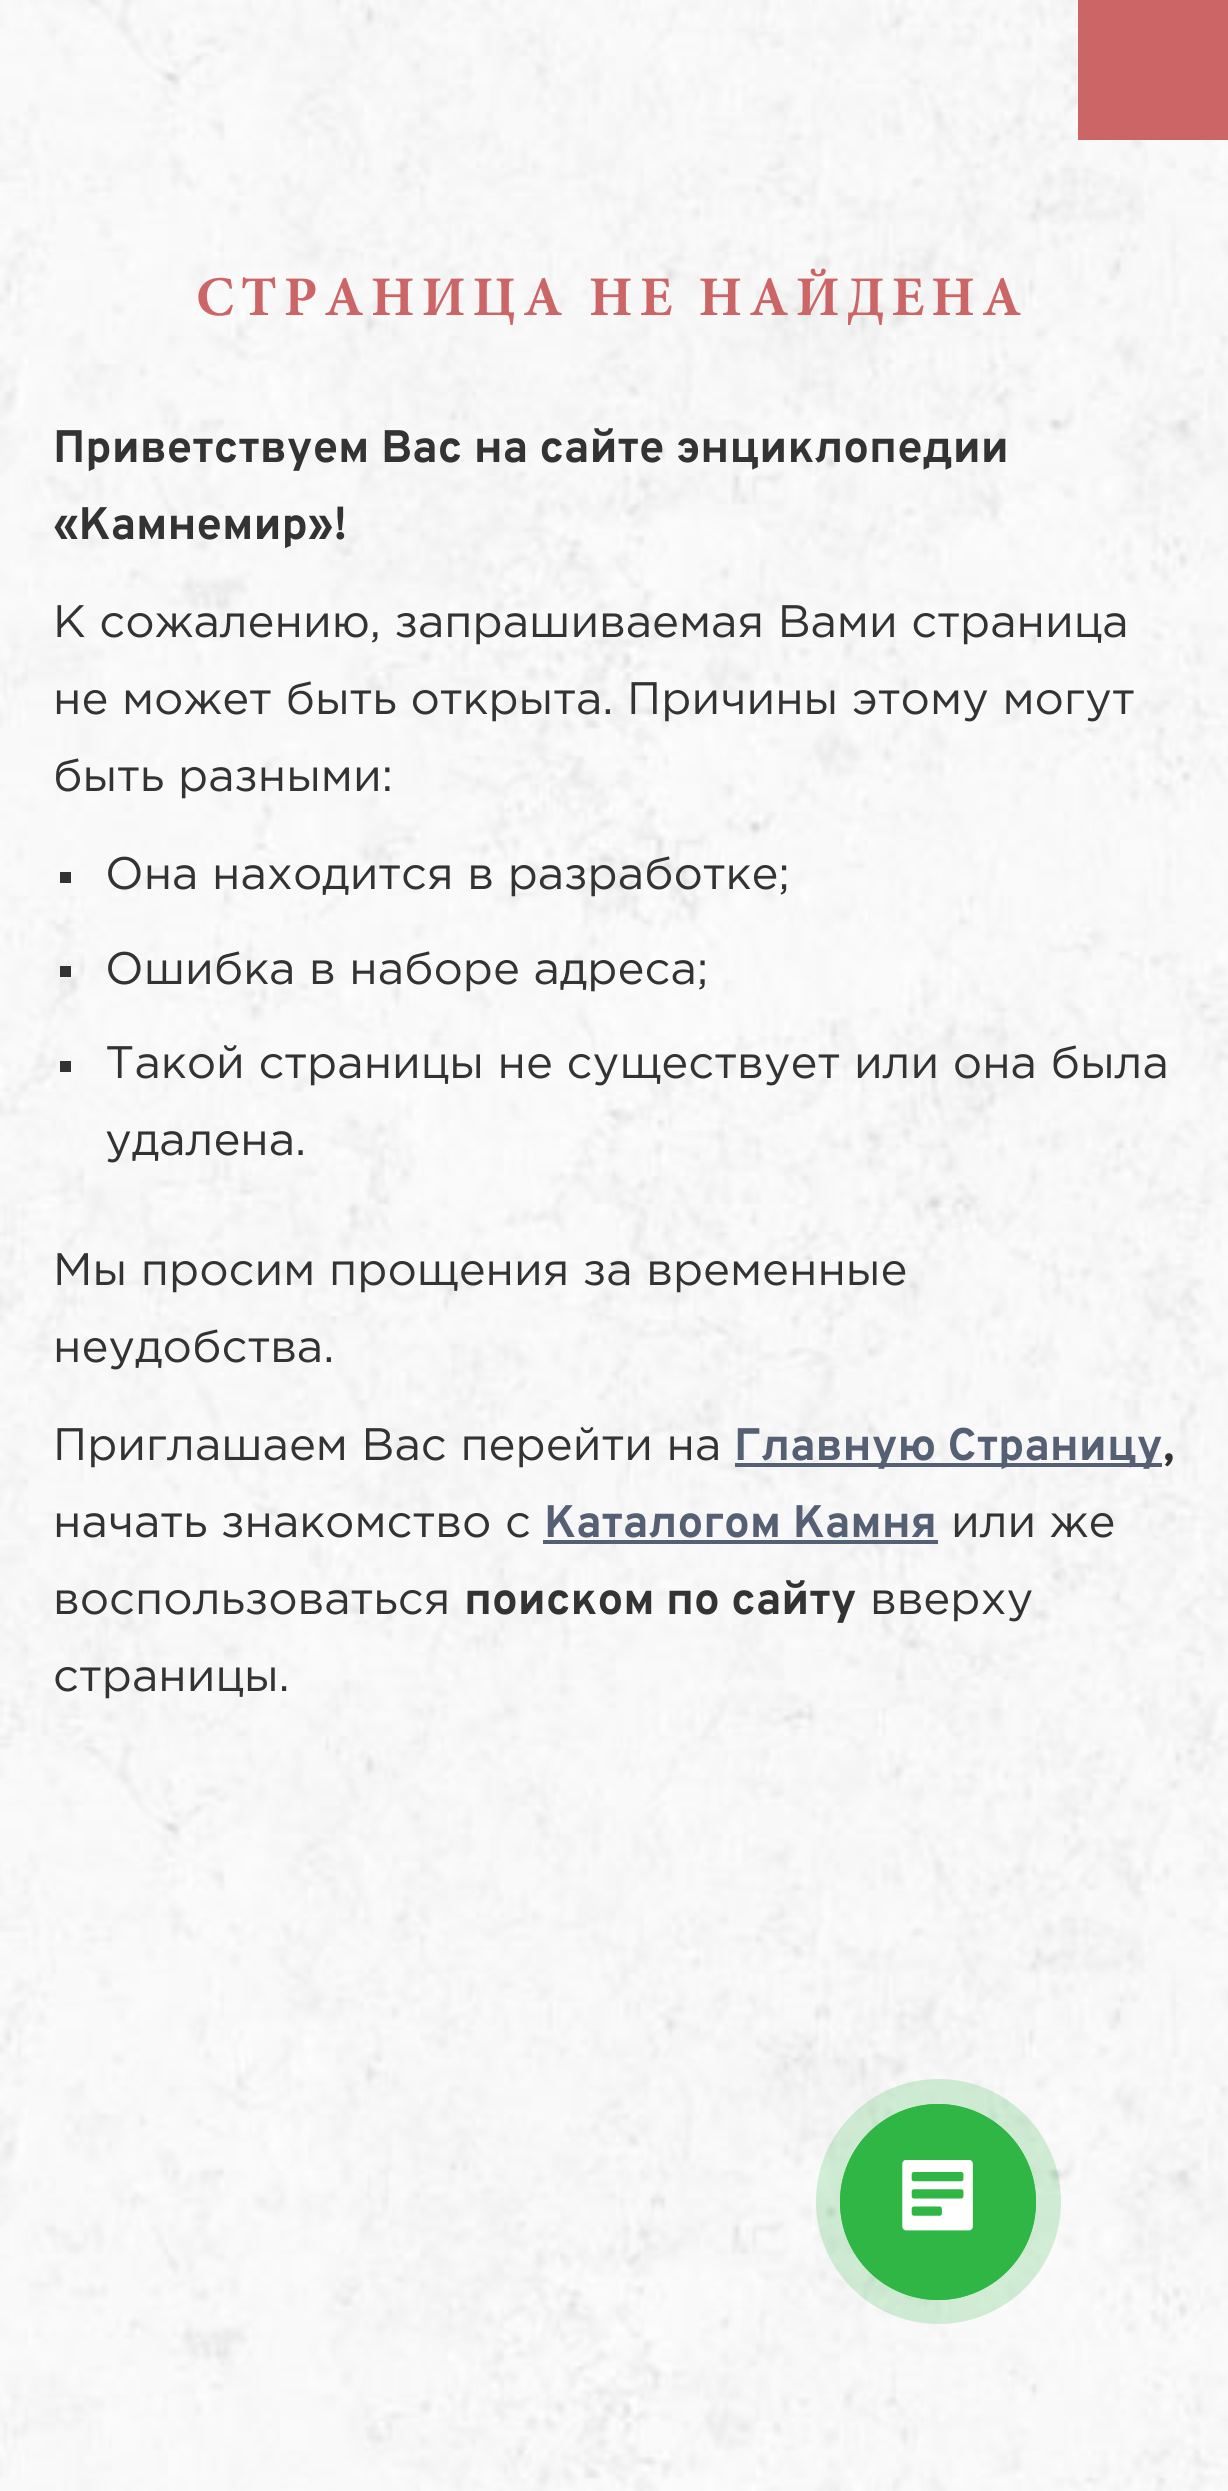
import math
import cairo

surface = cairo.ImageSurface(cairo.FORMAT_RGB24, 1228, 2491)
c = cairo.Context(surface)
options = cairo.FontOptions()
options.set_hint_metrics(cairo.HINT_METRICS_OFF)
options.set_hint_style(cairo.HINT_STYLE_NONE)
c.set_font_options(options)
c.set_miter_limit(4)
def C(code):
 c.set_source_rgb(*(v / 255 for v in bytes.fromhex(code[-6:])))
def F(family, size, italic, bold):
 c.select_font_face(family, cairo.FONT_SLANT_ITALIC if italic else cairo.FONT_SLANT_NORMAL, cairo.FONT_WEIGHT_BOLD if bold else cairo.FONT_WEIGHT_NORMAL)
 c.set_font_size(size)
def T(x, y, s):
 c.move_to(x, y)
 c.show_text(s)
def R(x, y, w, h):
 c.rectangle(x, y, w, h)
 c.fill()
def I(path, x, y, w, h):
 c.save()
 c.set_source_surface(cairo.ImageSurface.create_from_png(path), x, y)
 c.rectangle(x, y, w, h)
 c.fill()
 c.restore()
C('ffffff')
c.paint()
I('1.png',0,0,1228,2491)
C('cc6666')
R(1078,0,150,140)
I('2.png',198,268,823,57)
F('Overpass',45.5,0,1)
C('333333')
T(53,462,'Приветствуем Вас на сайте энциклопедии')
T(53,539,'«Камнемир»!')
F('Gotham',45.5,0,0)
T(53,637,'К сожалению, запрашиваемая Вами страница')
T(53,714,'не может быть открыта. Причины этому могут')
T(53,791,'быть разными:')
R(60,872,11,11)
T(105,889,'Она находится в разработке;')
R(60,966,11,11)
T(105,984,'Ошибка в наборе адреса;')
R(60,1061,11,11)
T(105,1078,'Такой страницы не существует или она была')
T(105,1155,'удалена.')
T(53,1285,'Мы просим прощения за временные')
T(53,1362,'неудобства.')
T(53,1460,'Приглашаем Вас перейти на')
C('566074')
R(735,1463,427,4)
F('Overpass',45.5,0,1)
T(734,1460,'Главную Страницу')
C('333333')
T(1163,1460,',')
F('Gotham',45.5,0,0)
T(53,1537,'начать знакомство с')
F('Overpass',45.5,0,1)
C('566074')
T(544,1537,'Каталогом Камня')
R(543,1540,395,4)
F('Gotham',45.5,0,0)
C('333333')
T(951,1537,'или же')
T(53,1614,'воспользоваться')
F('Overpass',45.5,0,1)
T(464,1614,'поиском по сайту')
F('Gotham',45.5,0,0)
T(870,1614,'вверху')
T(53,1691,'страницы.')
c.set_source_rgba(0.184,0.714,0.267,0.2)
c.new_path()
c.arc(938.5,2201.5,122.5,0,2 * math.pi)
c.fill()
c.arc(938,2202,96.5,0,2 * math.pi)
C('2fb644')
c.set_line_width(3)
c.stroke()
c.arc(938,2202,98,0,2 * math.pi)
c.fill()
I('3.png',902,2160,71,71)
surface.write_to_png('o.png')
